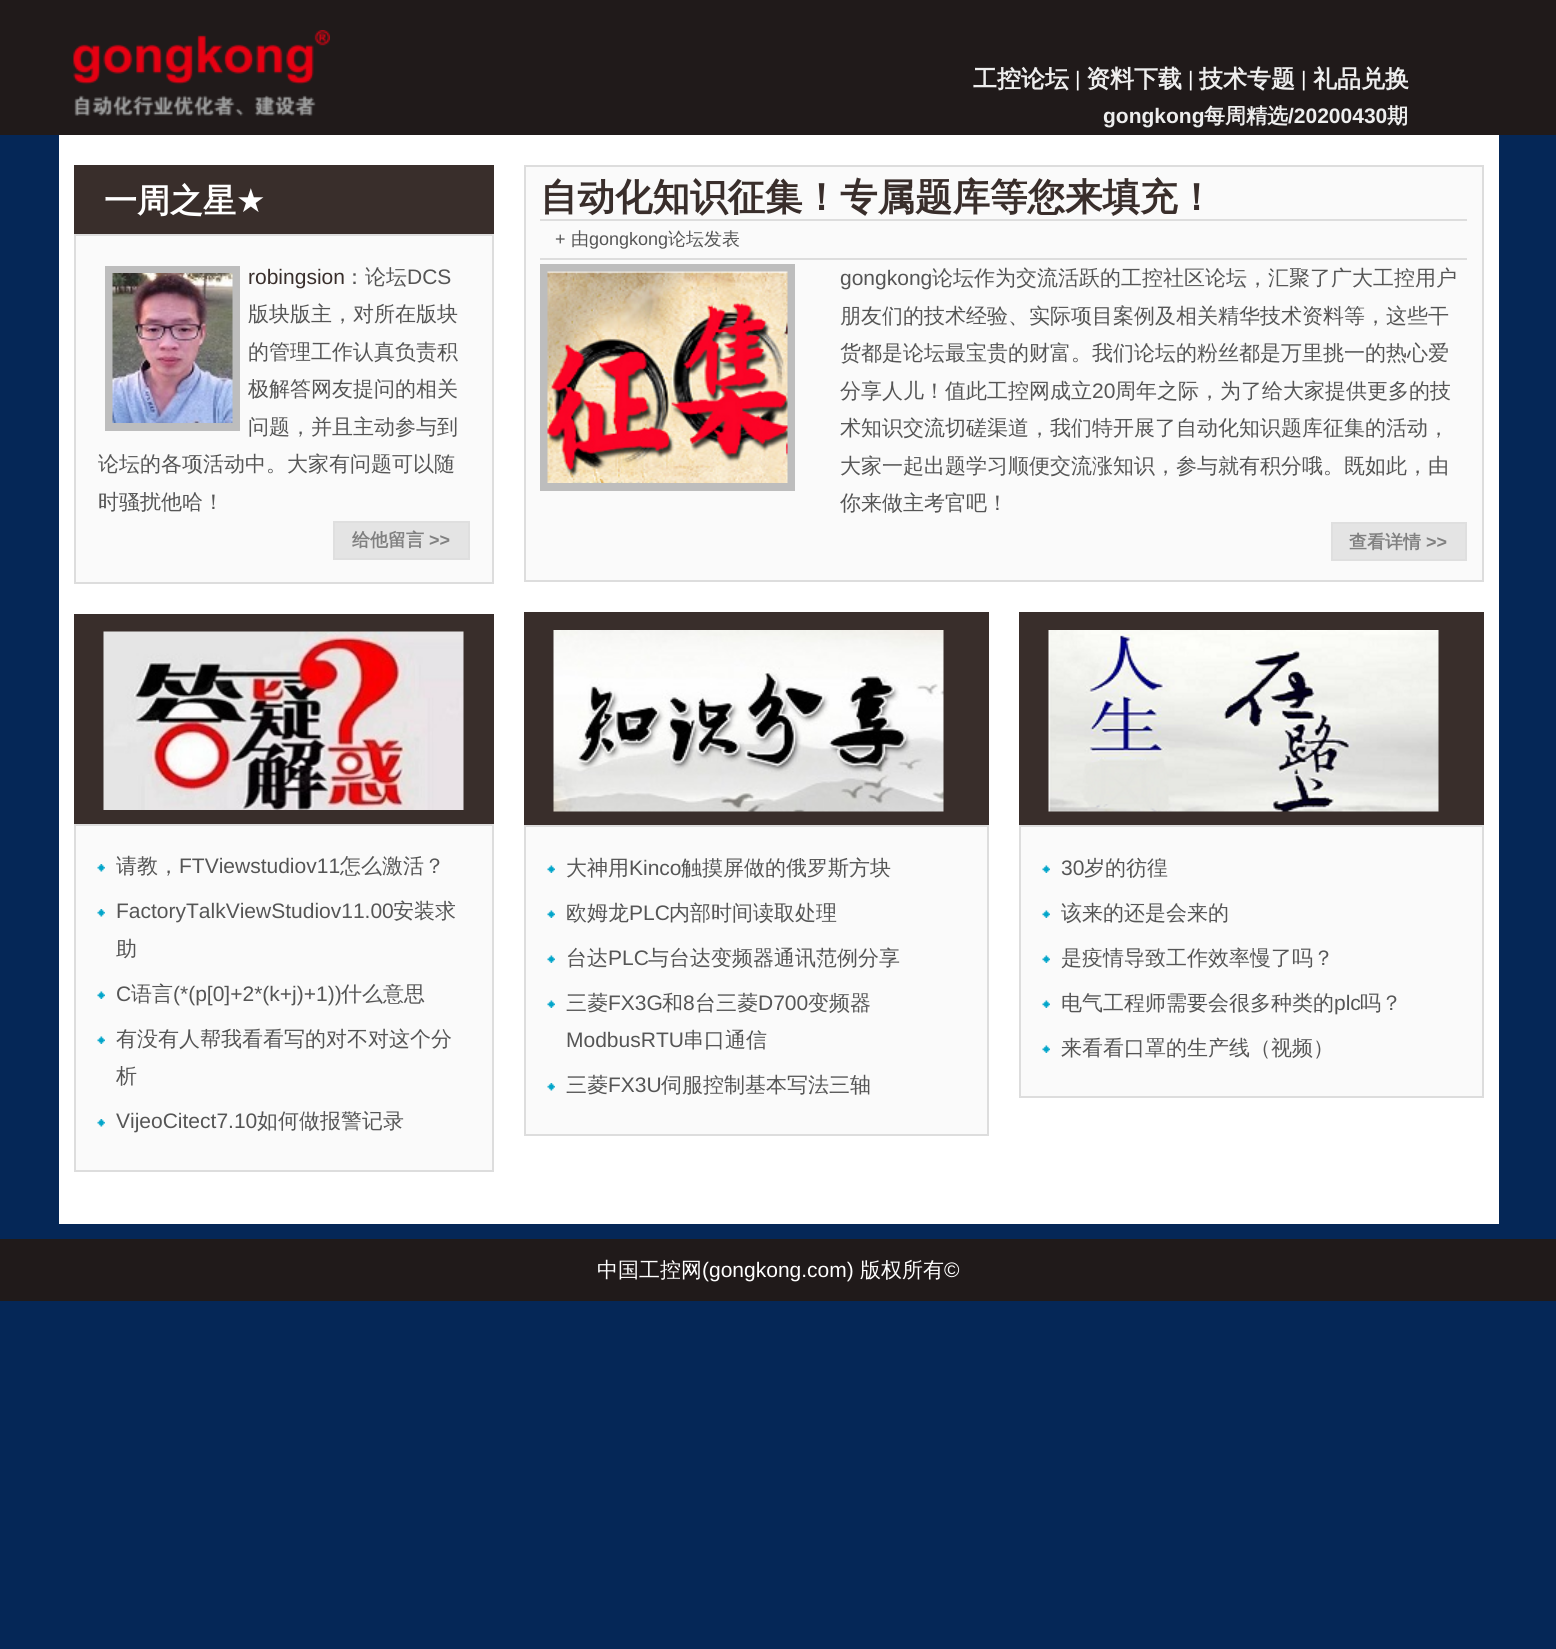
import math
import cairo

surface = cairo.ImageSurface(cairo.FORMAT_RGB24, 1556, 1649)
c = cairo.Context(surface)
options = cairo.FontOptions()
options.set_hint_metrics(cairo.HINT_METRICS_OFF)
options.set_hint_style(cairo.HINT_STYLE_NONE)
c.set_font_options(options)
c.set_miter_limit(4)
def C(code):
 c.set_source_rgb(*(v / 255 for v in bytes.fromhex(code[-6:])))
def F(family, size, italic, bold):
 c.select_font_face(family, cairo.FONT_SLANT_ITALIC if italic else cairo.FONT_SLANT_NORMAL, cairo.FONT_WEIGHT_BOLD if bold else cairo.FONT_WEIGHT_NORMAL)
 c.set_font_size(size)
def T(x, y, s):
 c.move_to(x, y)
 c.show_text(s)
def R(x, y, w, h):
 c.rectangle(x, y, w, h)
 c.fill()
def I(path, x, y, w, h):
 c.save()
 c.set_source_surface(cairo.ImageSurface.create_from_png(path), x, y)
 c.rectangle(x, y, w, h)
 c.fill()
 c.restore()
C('052757')
c.paint()
C('201a1a')
R(0,0,1556,135)
I('1.png',73,30,257,86)
F('WenQuanYi Zen Hei',24,0,1)
C('eeeeee')
T(973,87,'工控论坛')
F('Liberation Sans',21,0,0)
C('ffffff')
T(1075,86,'|')
F('WenQuanYi Zen Hei',24,0,1)
C('eeeeee')
T(1086,87,'资料下载')
F('Liberation Sans',21,0,0)
C('ffffff')
T(1188,86,'|')
F('WenQuanYi Zen Hei',24,0,1)
C('eeeeee')
T(1199,87,'技术专题')
F('Liberation Sans',21,0,0)
C('ffffff')
T(1301,86,'|')
F('WenQuanYi Zen Hei',24,0,1)
C('eeeeee')
T(1313,87,'礼品兑换')
F('Liberation Sans',21,0,1)
T(1103,123,'gongkong')
F('WenQuanYi Zen Hei',21,0,1)
T(1204,123,'每周精选')
F('Liberation Sans',21,0,1)
T(1288,123,'/20200430')
F('WenQuanYi Zen Hei',21,0,1)
T(1387,123,'期')
C('ffffff')
R(59,135,1440,1089)
C('392e2b')
R(74,165,420,69)
F('WenQuanYi Zen Hei',33,0,1)
C('ffffff')
T(104,212,'一周之星')
F('DejaVu Sans',33,0,0)
T(236,212,'★')
C('fafafa')
c.rectangle(75,235,418,348)
c.fill_preserve()
C('dddddd')
c.stroke()
c.rectangle(109,270,127,157)
C('bdbdbd')
c.set_line_width(8)
c.stroke()
I('2.png',112,273,121,150)
F('Liberation Sans',21,0,0)
C('392e2b')
T(248,284,'robingsion')
F('WenQuanYi Zen Hei Medium',21,0,0)
C('555555')
T(344,284,'：论坛')
F('Liberation Sans',21,0,0)
T(407,284,'DCS')
F('WenQuanYi Zen Hei Medium',21,0,0)
T(248,321,'版块版主，对所在版块')
T(248,359,'的管理工作认真负责积')
T(248,396,'极解答网友提问的相关')
T(248,434,'问题，并且主动参与到')
T(98,471,'论坛的各项活动中。大家有问题可以随')
T(98,509,'时骚扰他哈！')
C('e4e4e4')
c.rectangle(334,522,135,37)
c.fill_preserve()
C('dfdfdf')
c.set_line_width(2)
c.stroke()
F('WenQuanYi Zen Hei',18,0,1)
C('808080')
T(352,546,'给他留言')
F('Liberation Sans',18,0,1)
T(429,546,'>>')
C('392e2b')
R(74,614,420,210)
I('3.png',103,631,361,179)
C('fafafa')
c.rectangle(75,825,418,346)
c.fill_preserve()
C('dddddd')
c.stroke()
I('4.png',97,864,8,8)
F('WenQuanYi Zen Hei Medium',21,0,0)
C('555555')
T(116,873,'请教，')
F('Liberation Sans',21,0,0)
T(179,873,'FTViewstudiov11')
F('WenQuanYi Zen Hei Medium',21,0,0)
T(340,873,'怎么激活？')
I('4.png',97,909,8,8)
F('Liberation Sans',21,0,0)
T(116,918,'FactoryTalkViewStudiov11.00')
F('WenQuanYi Zen Hei Medium',21,0,0)
T(393,918,'安装求')
T(116,956,'助')
I('5.png',97,991,8,8)
F('Liberation Sans',21,0,0)
T(116,1001,'C')
F('WenQuanYi Zen Hei Medium',21,0,0)
T(131,1001,'语言')
F('Liberation Sans',21,0,0)
T(173,1001,'(*(p[0]+2*(k+j)+1))')
F('WenQuanYi Zen Hei Medium',21,0,0)
T(341,1001,'什么意思')
I('5.png',97,1036,8,8)
T(116,1046,'有没有人帮我看看写的对不对这个分')
T(116,1083,'析')
I('4.png',97,1119,8,8)
F('Liberation Sans',21,0,0)
T(116,1128,'VijeoCitect7.10')
F('WenQuanYi Zen Hei Medium',21,0,0)
T(257,1128,'如何做报警记录')
C('fafafa')
c.rectangle(525,166,958,415)
c.fill_preserve()
C('dddddd')
c.stroke()
F('WenQuanYi Zen Hei',37.5,0,1)
C('392e2b')
T(540,210,'自动化知识征集！专属题库等您来填充！')
C('dddddd')
R(540,219,927,2)
R(540,258,927,2)
F('Liberation Sans',18,0,0)
C('555555')
T(555,245,'+')
F('WenQuanYi Zen Hei Medium',18,0,0)
T(571,245,'由')
F('Liberation Sans',18,0,0)
T(589,245,'gongkong')
F('WenQuanYi Zen Hei Medium',18,0,0)
T(668,245,'论坛发表')
c.rectangle(544,268,247,219)
C('bdbdbd')
c.set_line_width(8)
c.stroke()
I('6.png',547,271,241,212)
F('Liberation Sans',21,0,0)
C('555555')
T(840,285,'gongkong')
F('WenQuanYi Zen Hei Medium',21,0,0)
T(932,285,'论坛作为交流活跃的工控社区论坛，汇聚了广大工控用户')
T(840,323,'朋友们的技术经验、实际项目案例及相关精华技术资料等，这些干')
T(840,360,'货都是论坛最宝贵的财富。我们论坛的粉丝都是万里挑一的热心爱')
T(840,398,'分享人儿！值此工控网成立')
F('Liberation Sans',21,0,0)
T(1092,398,'20')
F('WenQuanYi Zen Hei Medium',21,0,0)
T(1115,398,'周年之际，为了给大家提供更多的技')
T(840,435,'术知识交流切磋渠道，我们特开展了自动化知识题库征集的活动，')
T(840,473,'大家一起出题学习顺便交流涨知识，参与就有积分哦。既如此，由')
T(840,510,'你来做主考官吧！')
C('e4e4e4')
c.rectangle(1332,523,134,37)
c.fill_preserve()
C('dfdfdf')
c.set_line_width(2)
c.stroke()
F('WenQuanYi Zen Hei',18,0,1)
C('808080')
T(1349,548,'查看详情')
F('Liberation Sans',18,0,1)
T(1426,548,'>>')
C('392e2b')
R(524,612,465,213)
I('7.png',553,630,391,182)
C('fafafa')
c.rectangle(525,826,463,309)
c.fill_preserve()
C('dddddd')
c.stroke()
I('8.png',547,865,8,8)
F('WenQuanYi Zen Hei Medium',21,0,0)
C('555555')
T(566,875,'大神用')
F('Liberation Sans',21,0,0)
T(629,875,'Kinco')
F('WenQuanYi Zen Hei Medium',21,0,0)
T(681,875,'触摸屏做的俄罗斯方块')
I('8.png',547,910,8,8)
T(566,920,'欧姆龙')
F('Liberation Sans',21,0,0)
T(629,920,'PLC')
F('WenQuanYi Zen Hei Medium',21,0,0)
T(669,920,'内部时间读取处理')
I('8.png',547,955,8,8)
T(566,965,'台达')
F('Liberation Sans',21,0,0)
T(608,965,'PLC')
F('WenQuanYi Zen Hei Medium',21,0,0)
T(648,965,'与台达变频器通讯范例分享')
I('8.png',547,1000,8,8)
T(566,1010,'三菱')
F('Liberation Sans',21,0,0)
T(608,1010,'FX3G')
F('WenQuanYi Zen Hei Medium',21,0,0)
T(662,1010,'和')
F('Liberation Sans',21,0,0)
T(683,1010,'8')
F('WenQuanYi Zen Hei Medium',21,0,0)
T(695,1010,'台三菱')
F('Liberation Sans',21,0,0)
T(758,1010,'D700')
F('WenQuanYi Zen Hei Medium',21,0,0)
T(808,1010,'变频器')
F('Liberation Sans',21,0,0)
T(566,1047,'ModbusRTU')
F('WenQuanYi Zen Hei Medium',21,0,0)
T(683,1047,'串口通信')
I('9.png',547,1083,8,8)
T(566,1092,'三菱')
F('Liberation Sans',21,0,0)
T(608,1092,'FX3U')
F('WenQuanYi Zen Hei Medium',21,0,0)
T(661,1092,'伺服控制基本写法三轴')
C('392e2b')
R(1019,612,465,213)
I('10.png',1048,630,391,182)
C('fafafa')
c.rectangle(1020,826,463,271)
c.fill_preserve()
C('dddddd')
c.stroke()
I('8.png',1042,865,8,8)
F('Liberation Sans',21,0,0)
C('555555')
T(1061,875,'30')
F('WenQuanYi Zen Hei Medium',21,0,0)
T(1084,875,'岁的彷徨')
I('8.png',1042,910,8,8)
T(1061,920,'该来的还是会来的')
I('8.png',1042,955,8,8)
T(1061,965,'是疫情导致工作效率慢了吗？')
I('8.png',1042,1000,8,8)
T(1061,1010,'电气工程师需要会很多种类的')
F('Liberation Sans',21,0,0)
T(1334,1010,'plc')
F('WenQuanYi Zen Hei Medium',21,0,0)
T(1360,1010,'吗？')
I('8.png',1042,1045,8,8)
T(1061,1055,'来看看口罩的生产线（视频）')
C('201a1a')
R(0,1239,1556,62)
C('ffffff')
T(597,1277,'中国工控网')
F('Liberation Sans',21,0,0)
T(702,1277,'(gongkong.com)')
F('WenQuanYi Zen Hei Medium',21,0,0)
T(860,1277,'版权所有')
F('Liberation Sans',21,0,0)
T(944,1277,'©')
surface.write_to_png('o.png')
